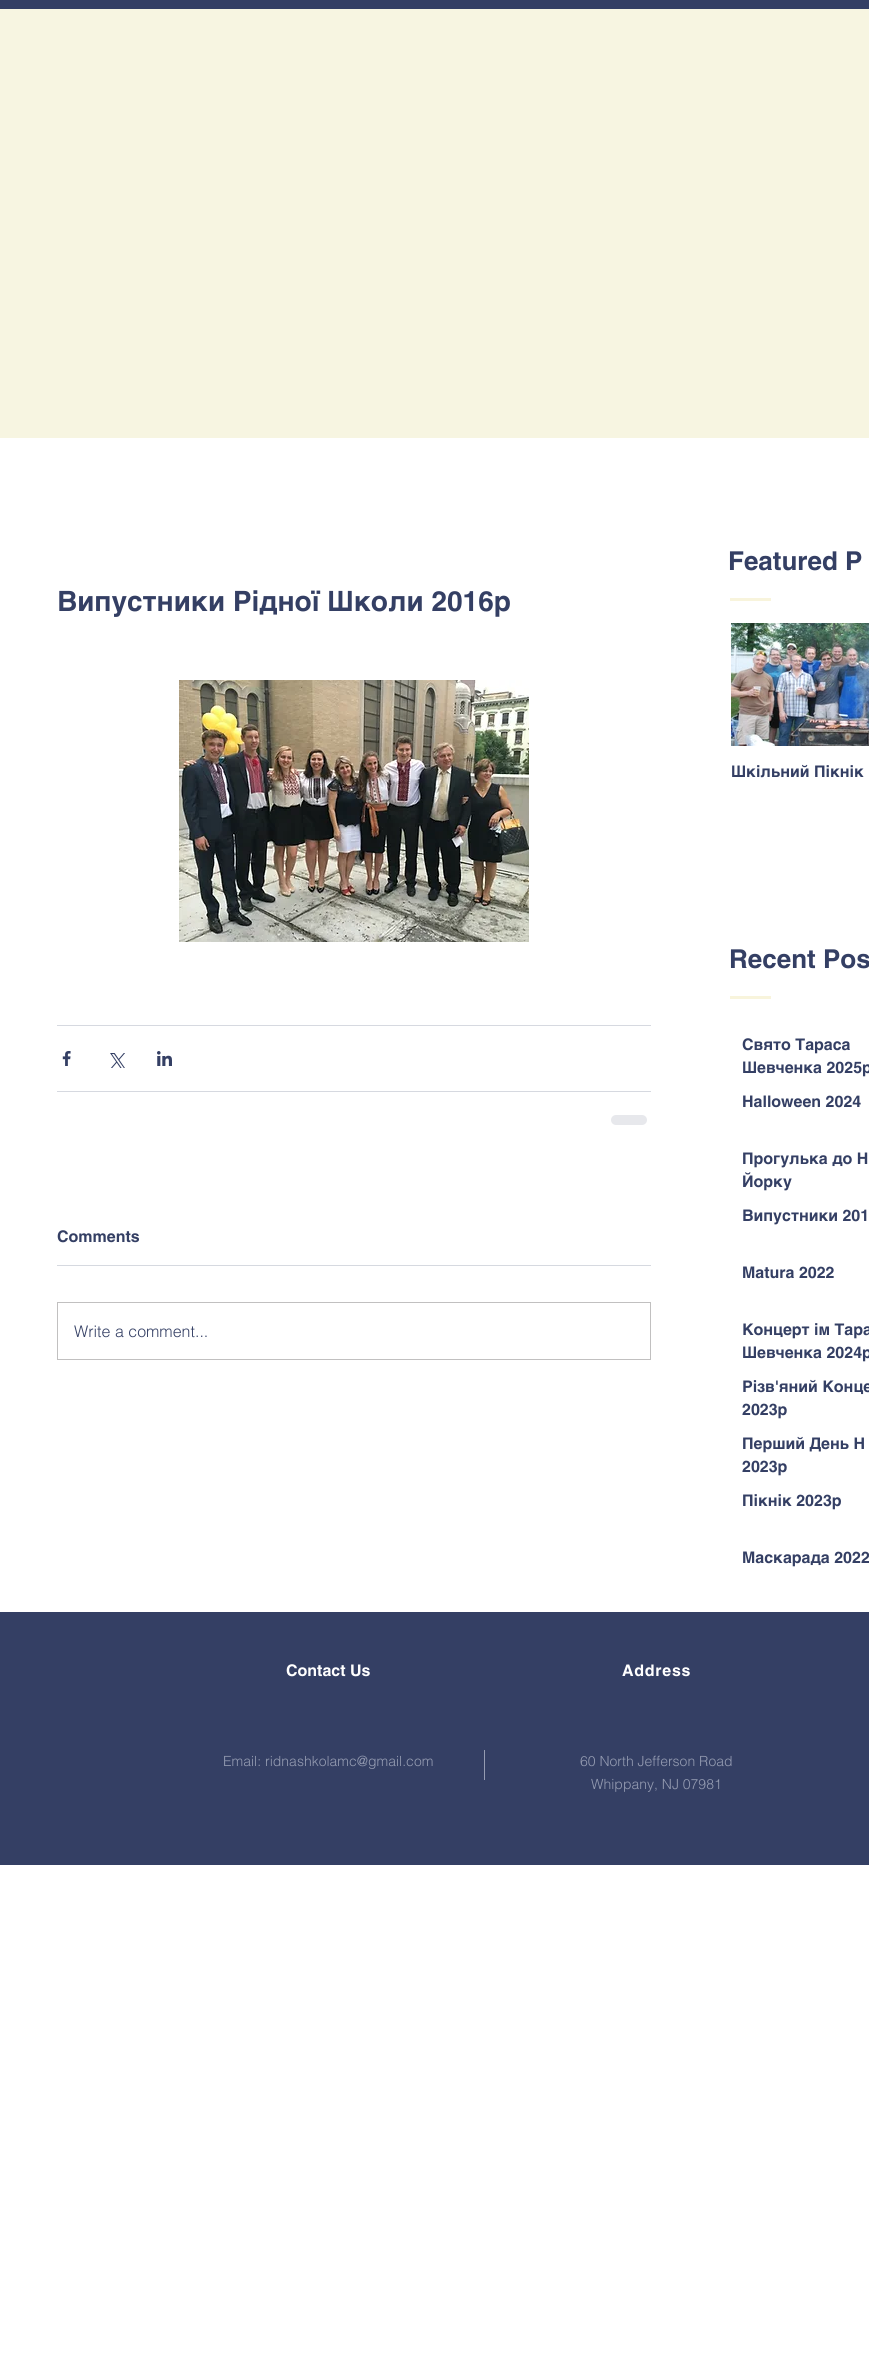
import math
import cairo

surface = cairo.ImageSurface(cairo.FORMAT_RGB24, 869, 2364)
c = cairo.Context(surface)
options = cairo.FontOptions()
options.set_hint_metrics(cairo.HINT_METRICS_OFF)
options.set_hint_style(cairo.HINT_STYLE_NONE)
c.set_font_options(options)
c.set_miter_limit(4)
def C(code):
 c.set_source_rgb(*(v / 255 for v in bytes.fromhex(code[-6:])))
def F(family, size, italic, bold):
 c.select_font_face(family, cairo.FONT_SLANT_ITALIC if italic else cairo.FONT_SLANT_NORMAL, cairo.FONT_WEIGHT_BOLD if bold else cairo.FONT_WEIGHT_NORMAL)
 c.set_font_size(size)
def T(x, y, s):
 c.move_to(x, y)
 c.show_text(s)
def L(x, y, s, letter, word):
 c.move_to(x, y)
 for ch in s:
  c.show_text(ch)
  c.rel_move_to(letter + word * (ch == ' '), 0)
def R(x, y, w, h):
 c.rectangle(x, y, w, h)
 c.fill()
def Q(x, y, w, h, r):
 c.new_sub_path()
 for i, (u, v) in enumerate([(x + w - r, y + h - r), (x + r, y + h - r), (x + r, y + r), (x + w - r, y + r)]):
  c.arc(u, v, r, i * math.pi / 2, (i + 1) * math.pi / 2)
 c.close_path()
def I(path, x, y, w, h):
 c.save()
 c.set_source_surface(cairo.ImageSurface.create_from_png(path), x, y)
 c.rectangle(x, y, w, h)
 c.fill()
 c.restore()
C('ffffff')
c.paint()
C('343f64')
R(0,0,869,9)
C('f7f5e1')
R(0,9,869,429)
F('helvetica',28,0,1)
C('343f64')
T(57,611,'Випустники Рідної Школи 2016р')
I('1.png',179,680,350,262)
C('d6d9e0')
R(57,1025,594,1)
I('2.png',62,1051,9,15)
I('3.png',110,1053,15,15)
I('4.png',157,1051,15,15)
R(57,1091,594,1)
C('e7e8ec')
Q(611,1115,36,10,5)
c.fill()
F('helvetica',16,0,1)
C('343f64')
T(57,1242,'Comments')
C('d6d9e0')
R(57,1265,594,1)
c.rectangle(57.5,1302.5,593,57)
C('c1c0c0')
c.set_line_width(1)
c.stroke()
F('helvetica Light',16,0,0)
C('343f64')
T(74,1337,'Write a comment...')
F('helvetica',26,0,1)
T(728,570,'Featured P')
C('f8f4dc')
R(730,598,41,3)
I('5.png',731,623,138,123)
F('helvetica',16,0,1)
C('343f64')
T(731,777,'Шкільний Пікнік')
F('helvetica',26,0,1)
T(729,968,'Recent Pos')
C('f8f4dc')
R(730,996,41,3)
F('helvetica',16,0,1)
C('343f64')
T(742,1050,'Свято Тараса')
T(742,1073,'Шевченка 2025р')
T(742,1107,'Halloween 2024')
T(742,1164,'Прогулька до Н')
T(742,1187,'Йорку')
T(742,1221,'Випустники 201')
T(742,1278,'Matura 2022')
T(742,1335,'Концерт ім Тара')
T(742,1358,'Шевченка 2024р')
T(742,1392,'Різв\'яний Конце')
T(742,1415,'2023р')
T(742,1449,'Перший День Н')
T(742,1472,'2023р')
T(742,1506,'Пікнік 2023р')
T(742,1563,'Маскарада 2022')
R(0,1612,869,253)
C('ffffff')
T(286,1676,'Contact Us')
L(622,1676,'Address',.75,0)
F('helvetica Light',14,0,0)
C('959cb2')
T(223,1766,'Email: ridnashkolamc@gmail.com')
R(484,1750,1,30)
T(580,1766,'60 North Jefferson Road')
T(591,1789,'Whippany, NJ 07981')
surface.write_to_png('o.png')
